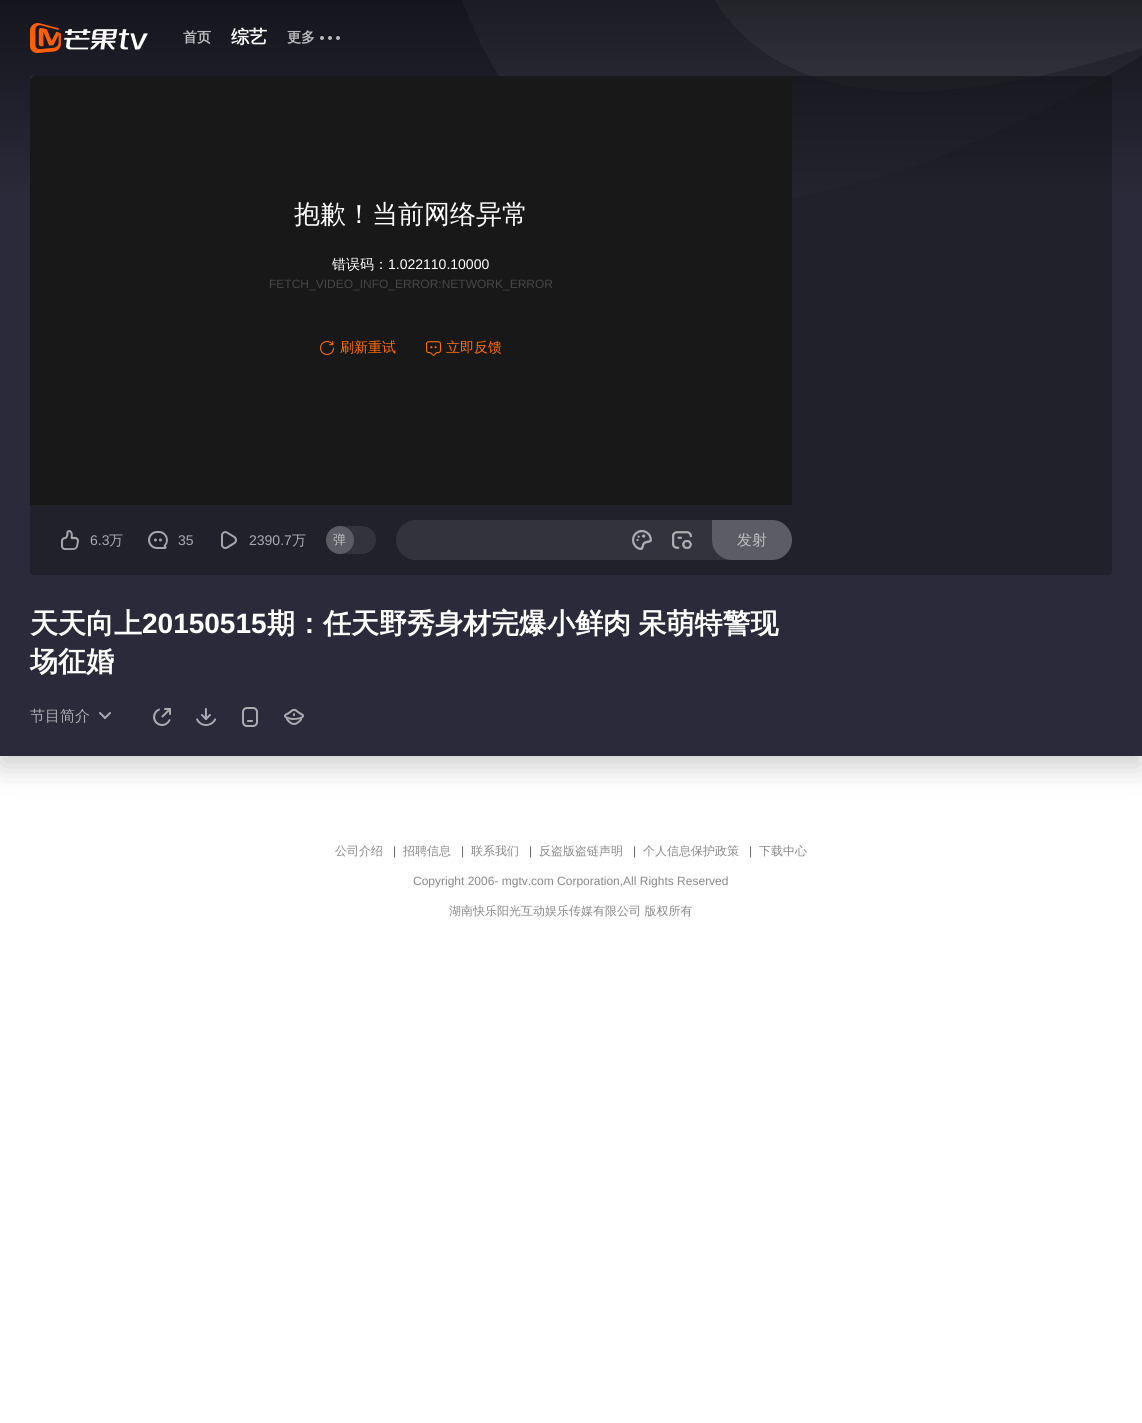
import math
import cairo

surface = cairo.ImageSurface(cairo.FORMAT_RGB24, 1142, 1423)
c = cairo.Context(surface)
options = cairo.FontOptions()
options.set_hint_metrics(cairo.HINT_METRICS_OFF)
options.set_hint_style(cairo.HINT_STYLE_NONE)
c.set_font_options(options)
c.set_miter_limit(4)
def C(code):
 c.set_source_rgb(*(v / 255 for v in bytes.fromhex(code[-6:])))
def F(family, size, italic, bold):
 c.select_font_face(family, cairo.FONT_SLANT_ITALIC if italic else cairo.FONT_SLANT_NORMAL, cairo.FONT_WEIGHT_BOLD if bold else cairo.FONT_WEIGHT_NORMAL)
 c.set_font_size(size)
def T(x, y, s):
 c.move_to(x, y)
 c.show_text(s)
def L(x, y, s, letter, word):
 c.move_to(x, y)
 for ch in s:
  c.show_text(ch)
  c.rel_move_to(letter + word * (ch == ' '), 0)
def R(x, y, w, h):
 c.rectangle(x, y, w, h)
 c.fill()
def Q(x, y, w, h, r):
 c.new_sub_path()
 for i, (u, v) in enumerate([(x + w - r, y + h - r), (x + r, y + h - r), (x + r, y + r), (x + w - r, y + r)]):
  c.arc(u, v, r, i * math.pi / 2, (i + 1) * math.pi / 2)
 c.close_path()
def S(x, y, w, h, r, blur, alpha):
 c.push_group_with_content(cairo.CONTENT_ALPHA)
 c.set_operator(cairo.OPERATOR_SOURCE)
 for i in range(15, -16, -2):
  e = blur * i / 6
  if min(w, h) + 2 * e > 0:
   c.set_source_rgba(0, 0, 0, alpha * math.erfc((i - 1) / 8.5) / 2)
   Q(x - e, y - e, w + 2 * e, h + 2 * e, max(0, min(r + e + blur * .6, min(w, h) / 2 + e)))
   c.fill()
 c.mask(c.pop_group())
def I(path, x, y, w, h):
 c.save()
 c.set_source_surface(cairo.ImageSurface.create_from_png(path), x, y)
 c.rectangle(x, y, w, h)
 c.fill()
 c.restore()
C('ffffff')
c.paint()
C('000000')
S(0,10,1142,756,0,15,.2)
C('2a2a3a')
R(0,0,1142,756)
I('3.png',462,0,680,198)
c.set_source_rgba(0.114,0.114,0.149,0.7)
Q(30,76,1082,499,4)
c.fill()
I('5.png',30,76,4,4)
I('4.png',0,0,1142,191)
I('1.png',30,23,118,30)
F('WenQuanYi Zen Hei',14,0,1)
C('bebec1')
T(183,42,'首页')
F('WenQuanYi Zen Hei',18,0,1)
C('ffffff')
T(231,43,'综艺')
F('WenQuanYi Zen Hei',14,0,1)
C('bebec1')
T(287,42,'更多')
I('2.png',320,36,20,4)
C('181818')
c.new_path()
c.move_to(34,76)
c.line_to(792,76)
c.line_to(792,505)
c.line_to(30,505)
c.line_to(30,80)
c.curve_to(30,78,32,76,34,76)
c.close_path()
c.fill()
F('WenQuanYi Zen Hei Medium',26,0,0)
C('ffffff')
T(294,223,'抱歉！当前网络异常')
F('WenQuanYi Zen Hei Medium',14,0,0)
T(332,269,'错误码：')
F('Liberation Sans',14,0,0)
T(388,269,'1.022110.10000')
F('Liberation Sans',12,0,0)
C('464646')
T(269,288,'FETCH_VIDEO_INFO_ERROR:NETWORK_ERROR')
I('6.png',320,341,14,14)
F('WenQuanYi Zen Hei Medium',14,0,0)
C('ff6f00')
T(340,352,'刷新重试')
I('7.png',426,341,15,15)
T(446,352,'立即反馈')
I('8.png',61,530,18,20)
F('Liberation Sans',14,0,0)
C('aaaab0')
T(90,545,'6.3')
F('WenQuanYi Zen Hei Medium',14,0,0)
T(109,545,'万')
I('9.png',148,531,20,18)
F('Liberation Sans',14,0,0)
T(178,545,'35')
I('10.png',221,531,16,18)
T(249,545,'2390.7')
F('WenQuanYi Zen Hei Medium',14,0,0)
T(292,545,'万')
C('33333d')
Q(326,526,50,28,14)
c.fill()
c.set_source_rgba(1,1,1,0.2)
c.arc(340,540,14,0,2 * math.pi)
c.fill()
F('WenQuanYi Zen Hei Medium',13,0,0)
C('bebec1')
T(333,544,'弹')
C('33333d')
Q(396,520,396,40,20)
c.fill()
I('11.png',632,530,20,20)
I('12.png',672,531,20,18)
c.set_source_rgba(1,1,1,0.2)
c.new_path()
c.move_to(712,520)
c.line_to(772,520)
c.curve_to(783,520,792,529,792,540)
c.curve_to(792,551,783,560,772,560)
c.line_to(732,560)
c.curve_to(721,560,712,551,712,540)
c.close_path()
c.fill()
F('WenQuanYi Zen Hei Medium',15,0,0)
C('bebec1')
T(737,545,'发射')
F('WenQuanYi Zen Hei',28,0,1)
C('ffffff')
T(30,633,'天天向上')
F('Liberation Sans',28,0,1)
T(142,633,'20150515')
F('WenQuanYi Zen Hei',28,0,1)
L(267,633,'期：任天野秀身材完爆小鲜肉 呆萌特警现',0,-1)
T(30,671,'场征婚')
F('WenQuanYi Zen Hei Medium',15,0,0)
C('aaaab0')
T(30,721,'节目简介')
I('13.png',99,712,12,7)
I('14.png',153,708,18,18)
I('15.png',196,708,20,18)
I('16.png',242,707,16,20)
I('17.png',284,708,20,17)
F('WenQuanYi Zen Hei Medium',12,0,0)
C('888888')
T(335,855,'公司介绍')
F('Liberation Sans',12,0,0)
C('666666')
T(393,855,'|')
F('WenQuanYi Zen Hei Medium',12,0,0)
C('888888')
T(403,855,'招聘信息')
F('Liberation Sans',12,0,0)
C('666666')
T(461,855,'|')
F('WenQuanYi Zen Hei Medium',12,0,0)
C('888888')
T(471,855,'联系我们')
F('Liberation Sans',12,0,0)
C('666666')
T(529,855,'|')
F('WenQuanYi Zen Hei Medium',12,0,0)
C('888888')
T(539,855,'反盗版盗链声明')
F('Liberation Sans',12,0,0)
C('666666')
T(633,855,'|')
F('WenQuanYi Zen Hei Medium',12,0,0)
C('888888')
T(643,855,'个人信息保护政策')
F('Liberation Sans',12,0,0)
C('666666')
T(749,855,'|')
F('WenQuanYi Zen Hei Medium',12,0,0)
C('888888')
T(759,855,'下载中心')
F('Liberation Sans',12,0,0)
T(413,885,'Copyright 2006- mgtv.com Corporation,All Rights Reserved')
F('WenQuanYi Zen Hei Medium',12,0,0)
T(449,915,'湖南快乐阳光互动娱乐传媒有限公司 版权所有')
surface.write_to_png('o.png')
